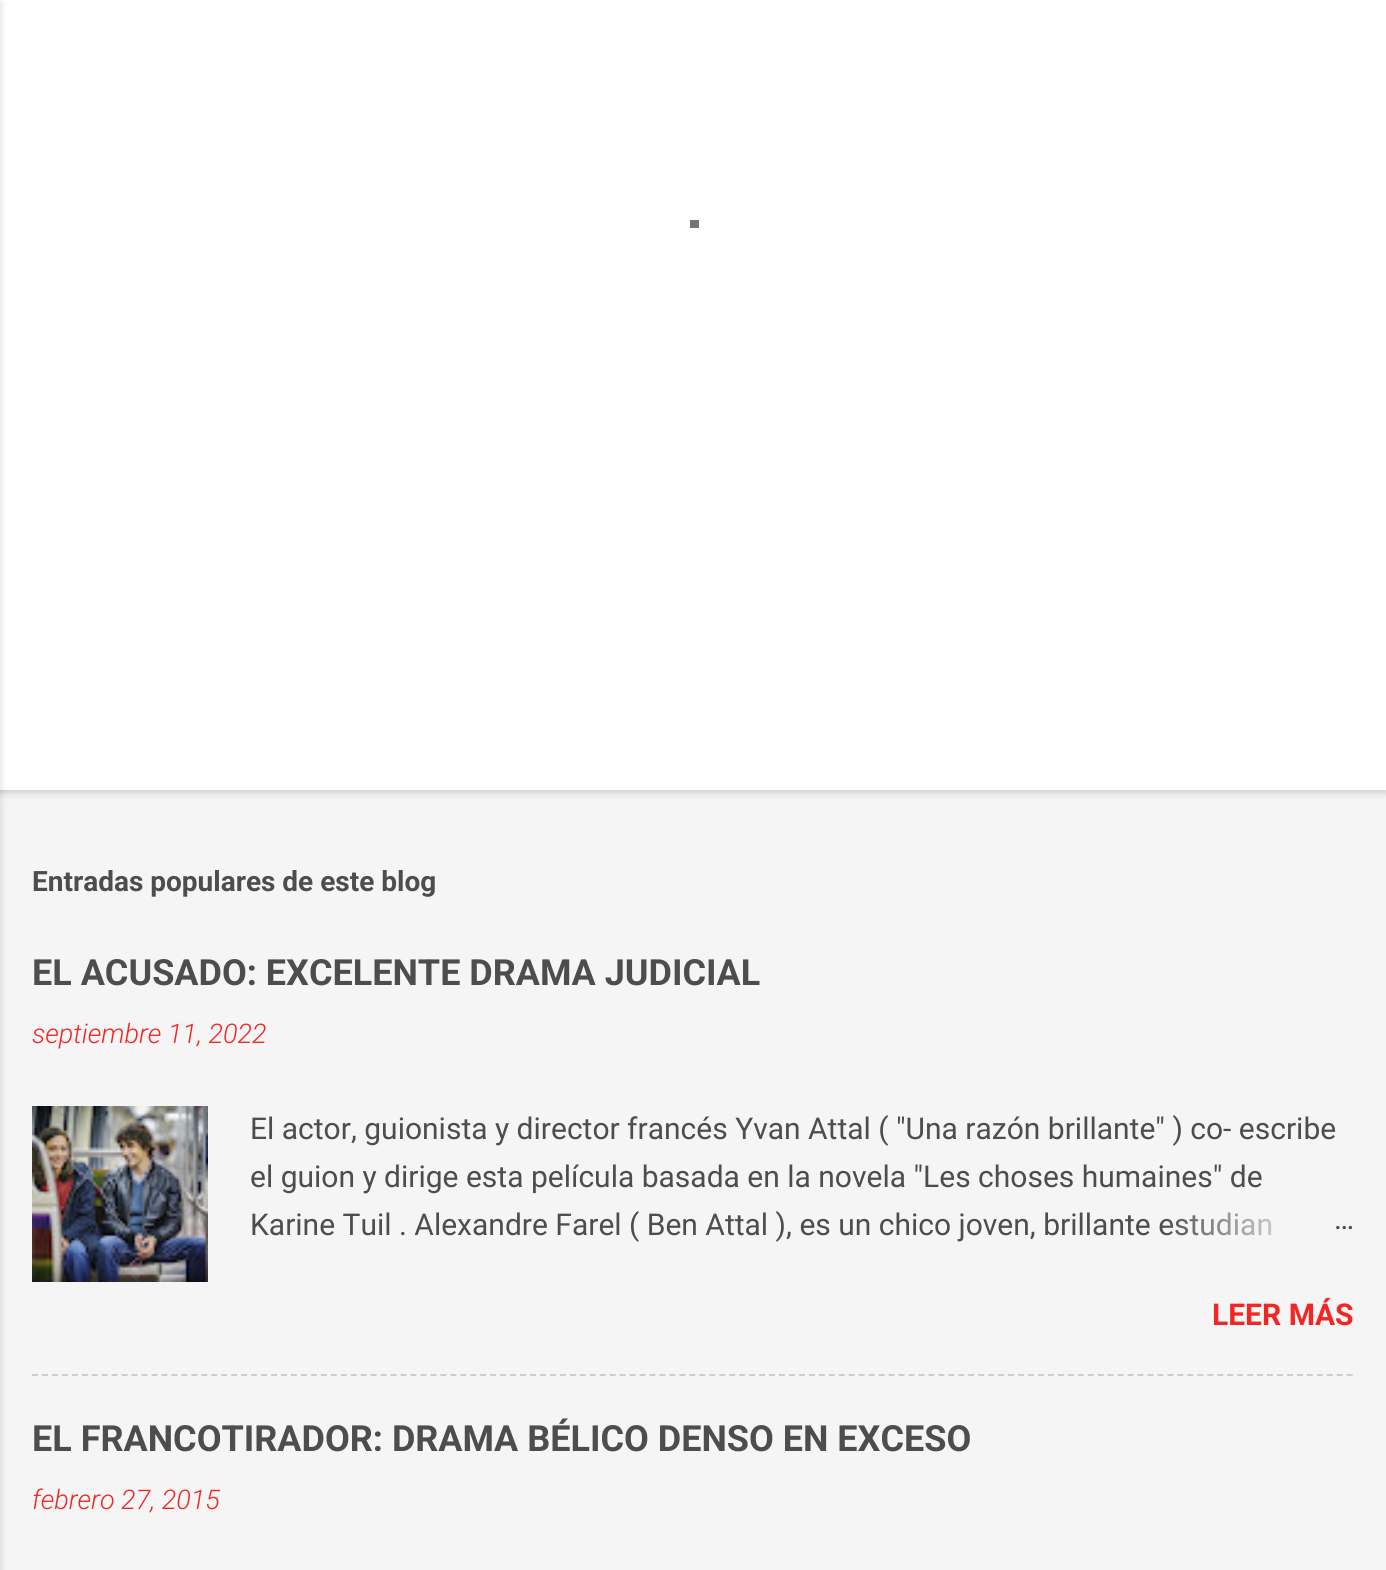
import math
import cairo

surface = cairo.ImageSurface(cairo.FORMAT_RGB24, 1386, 1570)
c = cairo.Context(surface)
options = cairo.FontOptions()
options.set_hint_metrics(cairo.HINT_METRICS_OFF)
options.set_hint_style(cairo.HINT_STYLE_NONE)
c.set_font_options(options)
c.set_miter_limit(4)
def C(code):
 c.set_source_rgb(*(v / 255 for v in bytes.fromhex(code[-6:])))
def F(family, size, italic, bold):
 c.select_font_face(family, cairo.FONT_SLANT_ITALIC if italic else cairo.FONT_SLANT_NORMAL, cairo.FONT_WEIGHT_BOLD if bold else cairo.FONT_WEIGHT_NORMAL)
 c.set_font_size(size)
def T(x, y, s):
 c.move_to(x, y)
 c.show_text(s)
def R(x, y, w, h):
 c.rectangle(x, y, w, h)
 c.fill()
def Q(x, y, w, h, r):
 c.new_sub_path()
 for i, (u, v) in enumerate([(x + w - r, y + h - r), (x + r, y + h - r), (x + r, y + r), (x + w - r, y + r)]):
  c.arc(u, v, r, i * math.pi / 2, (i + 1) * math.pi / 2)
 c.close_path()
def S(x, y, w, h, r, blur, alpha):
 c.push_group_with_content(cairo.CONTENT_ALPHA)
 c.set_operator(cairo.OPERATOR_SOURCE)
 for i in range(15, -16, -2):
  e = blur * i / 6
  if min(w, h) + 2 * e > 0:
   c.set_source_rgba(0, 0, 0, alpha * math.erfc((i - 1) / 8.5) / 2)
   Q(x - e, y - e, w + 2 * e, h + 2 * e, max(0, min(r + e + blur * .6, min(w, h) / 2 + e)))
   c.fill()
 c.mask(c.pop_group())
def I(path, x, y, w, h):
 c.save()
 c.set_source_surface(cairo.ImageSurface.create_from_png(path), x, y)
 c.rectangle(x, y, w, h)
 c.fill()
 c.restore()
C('f5f5f5')
c.paint()
C('4f4747')
S(0,-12,1386,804,0,4,.3)
C('ffffff')
R(0,0,1386,790)
C('000000')
S(-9,2,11,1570,0,3,.1)
C('757575')
R(690,220,9,8)
F('Roboto',28,0,1)
C('4d4d4d')
T(32,891,'Entradas populares de este blog')
F('Roboto',36,0,1)
T(32,985,'EL ACUSADO: EXCELENTE DRAMA JUDICIAL')
F('Roboto Light',27,1,0)
C('f32626')
T(32,1043,'septiembre 11, 2022')
I('1.png',32,1106,176,176)
F('Roboto',30,0,0)
C('4d4d4d')
T(250,1139,'El actor, guionista y director francés Yvan Attal ( "Una razón brillante" ) co- escribe')
T(250,1187,'el guion y dirige esta película basada en la novela "Les choses humaines" de')
T(250,1235,'Karine Tuil . Alexandre Farel ( Ben Attal ), es un chico joven, brillante estudian')
gradient = cairo.LinearGradient(1354,1226,1162,1226)
gradient.add_color_stop_rgba(0,0.961,0.961,0.961,1)
gradient.add_color_stop_rgba(.2,0.961,0.961,0.961,1)
gradient.add_color_stop_rgba(1,0.961,0.961,0.961,0)
c.set_source(gradient)
R(1165,1212,106,24)
C('4d4d4d')
T(1334,1229,'…')
F('Roboto',30,0,1)
C('f32626')
T(1212,1325,'LEER MÁS')
c.new_path()
c.move_to(32,1375)
c.line_to(1354,1375)
C('cdcdcd')
c.set_dash([6,3.96])
c.stroke()
F('Roboto',36,0,1)
C('4d4d4d')
T(32,1451,'EL FRANCOTIRADOR: DRAMA BÉLICO DENSO EN EXCESO')
F('Roboto Light',27,1,0)
C('f32626')
T(32,1509,'febrero 27, 2015')
surface.write_to_png('o.png')
